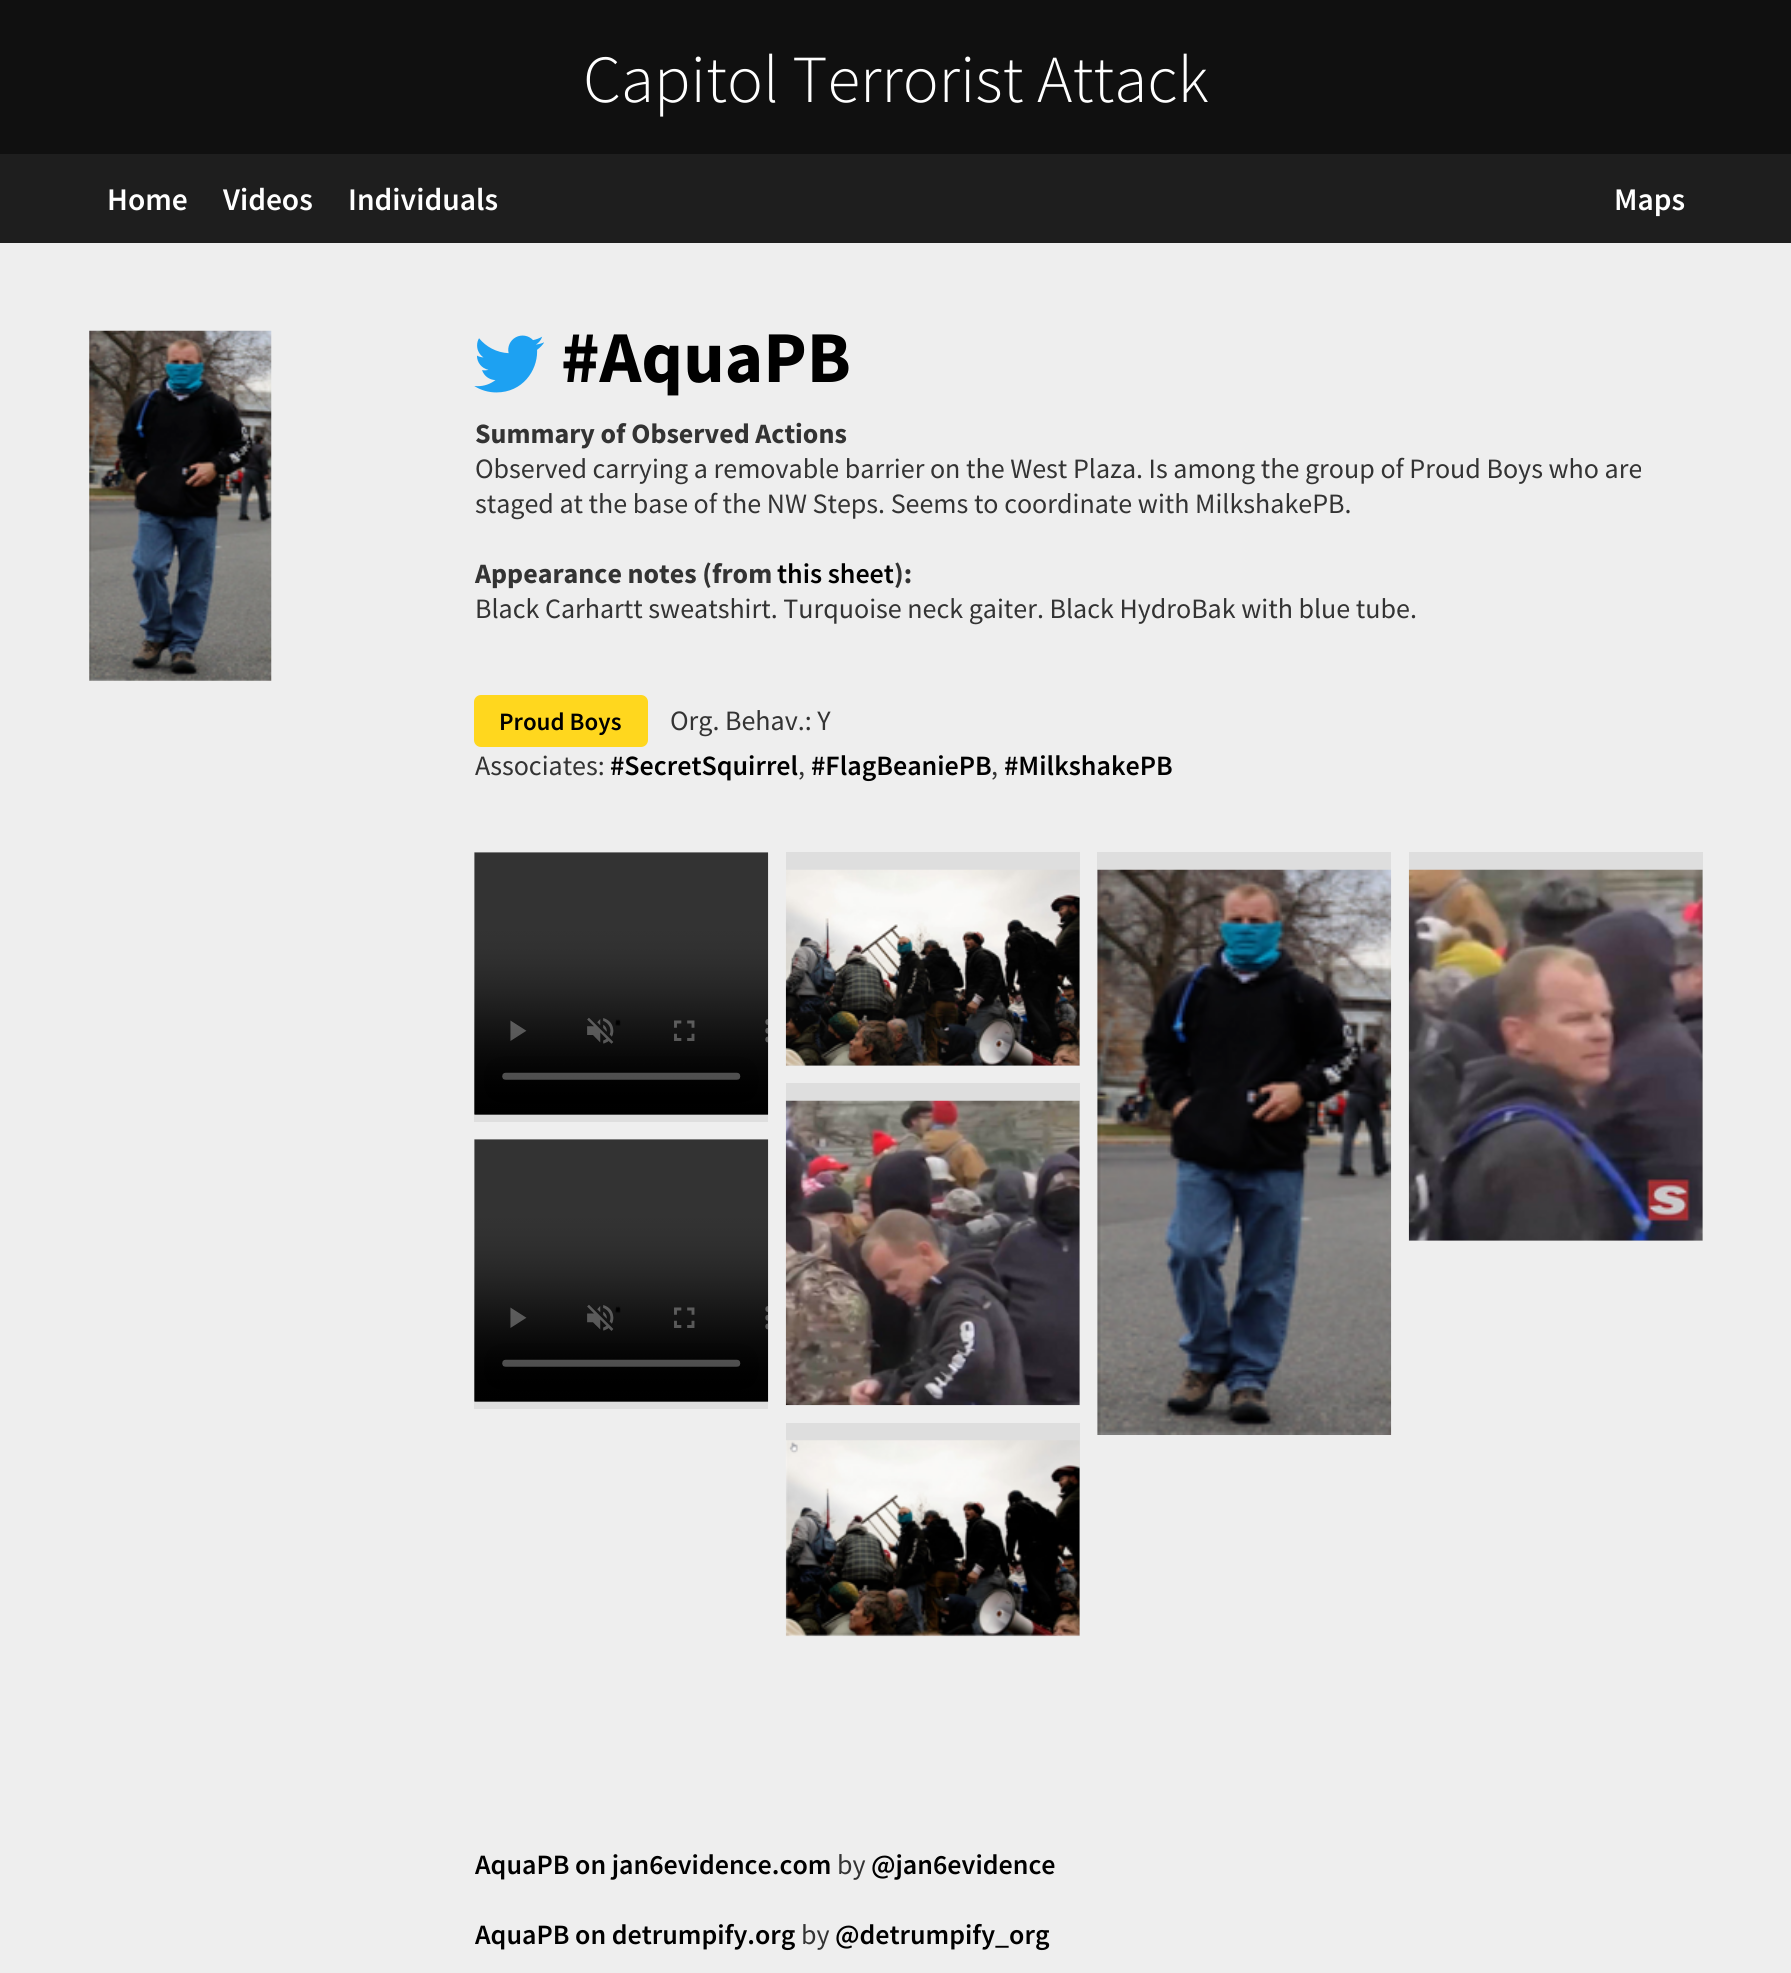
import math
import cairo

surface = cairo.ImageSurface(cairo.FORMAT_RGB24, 1791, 1973)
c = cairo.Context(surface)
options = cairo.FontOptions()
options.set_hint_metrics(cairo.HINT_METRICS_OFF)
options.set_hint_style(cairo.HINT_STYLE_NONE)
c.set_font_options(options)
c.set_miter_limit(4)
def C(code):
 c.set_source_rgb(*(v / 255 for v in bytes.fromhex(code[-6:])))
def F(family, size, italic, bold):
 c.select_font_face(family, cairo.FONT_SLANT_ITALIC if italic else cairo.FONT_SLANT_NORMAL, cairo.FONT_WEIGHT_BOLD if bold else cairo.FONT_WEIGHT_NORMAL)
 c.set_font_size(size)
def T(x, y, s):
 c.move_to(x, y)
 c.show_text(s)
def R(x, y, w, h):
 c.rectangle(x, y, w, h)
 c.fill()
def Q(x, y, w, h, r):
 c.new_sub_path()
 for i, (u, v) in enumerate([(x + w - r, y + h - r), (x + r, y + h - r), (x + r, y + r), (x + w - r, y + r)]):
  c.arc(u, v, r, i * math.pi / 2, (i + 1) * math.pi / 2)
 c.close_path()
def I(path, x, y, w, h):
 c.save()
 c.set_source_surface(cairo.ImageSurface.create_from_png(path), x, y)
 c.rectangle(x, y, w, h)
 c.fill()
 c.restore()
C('eeeeee')
c.paint()
C('1e1e1e')
R(0,154,1791,89)
C('101010')
R(0,0,1791,154)
F('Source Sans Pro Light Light',67.25,0,0)
C('ffffff')
T(583,102,'Capitol Terrorist Attack')
F('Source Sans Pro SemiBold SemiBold',31.5,0,0)
T(107,210,'Home')
T(223,210,'Videos')
T(348,210,'Individuals')
T(1614,210,'Maps')
I('1.png',89,330,183,351)
I('2.png',474,335,70,58)
F('Source Sans Pro',73,0,1)
C('000000')
T(561,382,'#AquaPB')
F('Source Sans Pro',28,0,1)
C('333333')
T(475,443,'Summary of Observed Actions')
F('Source Sans Pro',28,0,0)
T(475,478,'Observed carrying a removable barrier on the West Plaza. Is among the group of Proud Boys who are')
T(475,513,'staged at the base of the NW Steps. Seems to coordinate with MilkshakePB.')
F('Source Sans Pro',28,0,1)
T(475,583,'Appearance notes (from')
F('Source Sans Pro SemiBold SemiBold',28,0,0)
C('000000')
T(777,583,'this sheet')
F('Source Sans Pro',28,0,1)
C('333333')
T(894,583,'):')
F('Source Sans Pro',28,0,0)
T(475,618,'Black Carhartt sweatshirt. Turquoise neck gaiter. Black HydroBak with blue tube.')
C('ffd71e')
Q(474,695,174,52,7)
c.fill()
F('Source Sans Pro SemiBold SemiBold',25,0,0)
C('000000')
T(499,730,'Proud Boys')
F('Source Sans Pro',28,0,0)
C('333333')
T(670,730,'Org. Behav.: Y')
T(475,775,'Associates:')
F('Source Sans Pro SemiBold SemiBold',28,0,0)
C('000000')
T(610,775,'#SecretSquirrel')
F('Source Sans Pro',28,0,0)
C('333333')
T(798,775,',')
F('Source Sans Pro SemiBold SemiBold',28,0,0)
C('000000')
T(811,775,'#FlagBeaniePB')
F('Source Sans Pro',28,0,0)
C('333333')
T(991,775,',')
F('Source Sans Pro SemiBold SemiBold',28,0,0)
C('000000')
T(1004,775,'#MilkshakePB')
C('dedede')
R(474,852,294,270)
I('3.png',474,852,295,263)
R(786,852,294,214)
I('4.png',785,869,295,197)
R(1097,852,294,583)
I('5.png',1097,869,295,566)
R(1409,852,294,389)
I('6.png',1408,869,295,372)
R(474,1139,294,270)
I('7.png',474,1139,295,263)
R(786,1083,294,322)
I('8.png',785,1100,295,306)
R(786,1423,294,213)
I('9.png',785,1440,295,197)
C('000000')
T(475,1874,'AquaPB on jan6evidence.com')
F('Source Sans Pro',28,0,0)
C('333333')
T(837,1874,'by')
F('Source Sans Pro SemiBold SemiBold',28,0,0)
C('000000')
T(871,1874,'@jan6evidence')
T(475,1944,'AquaPB on detrumpify.org')
F('Source Sans Pro',28,0,0)
C('333333')
T(801,1944,'by')
F('Source Sans Pro SemiBold SemiBold',28,0,0)
C('000000')
T(835,1944,'@detrumpify_org')
surface.write_to_png('o.png')
